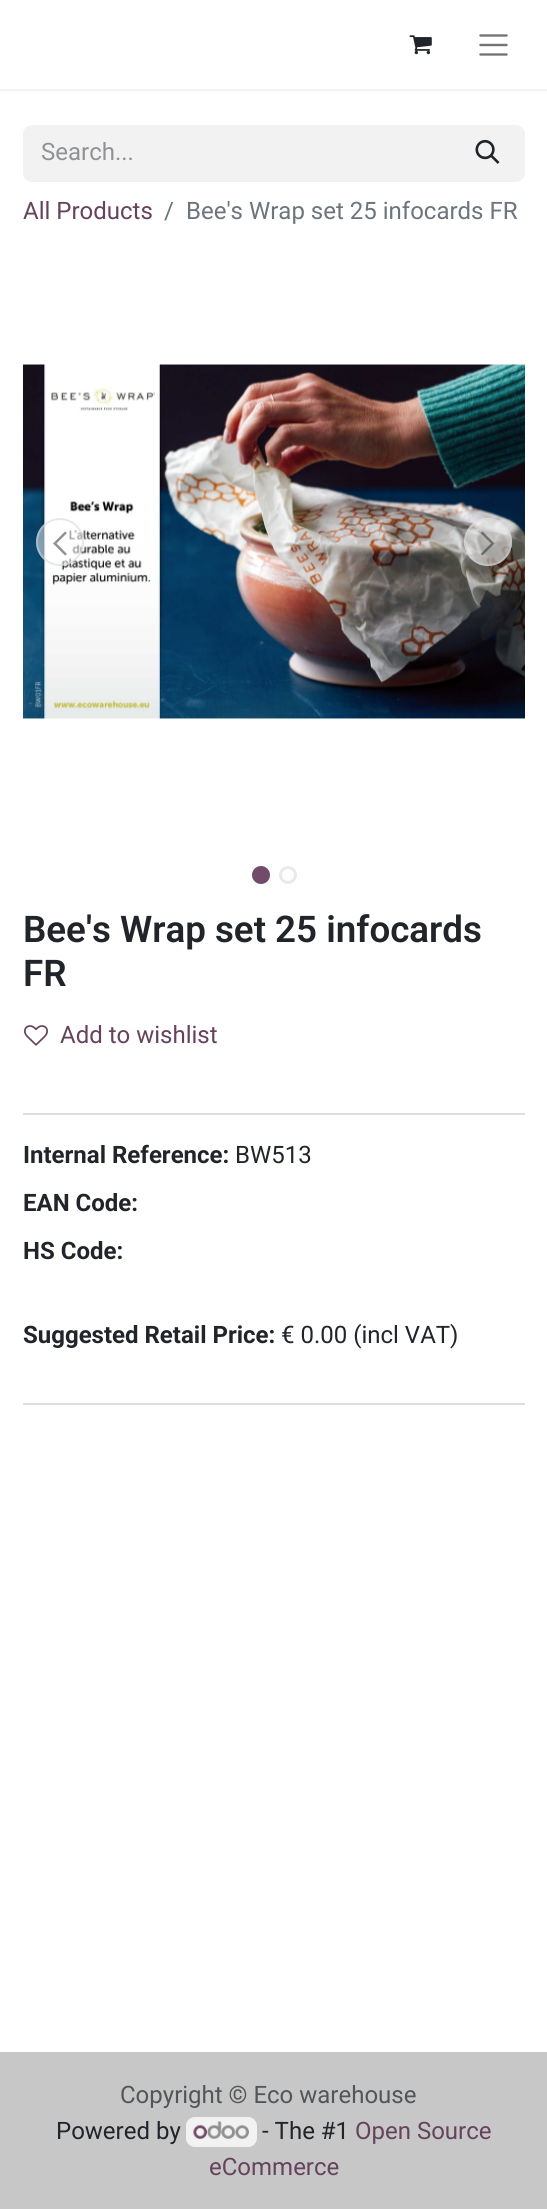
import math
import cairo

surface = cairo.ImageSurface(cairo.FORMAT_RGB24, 547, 2209)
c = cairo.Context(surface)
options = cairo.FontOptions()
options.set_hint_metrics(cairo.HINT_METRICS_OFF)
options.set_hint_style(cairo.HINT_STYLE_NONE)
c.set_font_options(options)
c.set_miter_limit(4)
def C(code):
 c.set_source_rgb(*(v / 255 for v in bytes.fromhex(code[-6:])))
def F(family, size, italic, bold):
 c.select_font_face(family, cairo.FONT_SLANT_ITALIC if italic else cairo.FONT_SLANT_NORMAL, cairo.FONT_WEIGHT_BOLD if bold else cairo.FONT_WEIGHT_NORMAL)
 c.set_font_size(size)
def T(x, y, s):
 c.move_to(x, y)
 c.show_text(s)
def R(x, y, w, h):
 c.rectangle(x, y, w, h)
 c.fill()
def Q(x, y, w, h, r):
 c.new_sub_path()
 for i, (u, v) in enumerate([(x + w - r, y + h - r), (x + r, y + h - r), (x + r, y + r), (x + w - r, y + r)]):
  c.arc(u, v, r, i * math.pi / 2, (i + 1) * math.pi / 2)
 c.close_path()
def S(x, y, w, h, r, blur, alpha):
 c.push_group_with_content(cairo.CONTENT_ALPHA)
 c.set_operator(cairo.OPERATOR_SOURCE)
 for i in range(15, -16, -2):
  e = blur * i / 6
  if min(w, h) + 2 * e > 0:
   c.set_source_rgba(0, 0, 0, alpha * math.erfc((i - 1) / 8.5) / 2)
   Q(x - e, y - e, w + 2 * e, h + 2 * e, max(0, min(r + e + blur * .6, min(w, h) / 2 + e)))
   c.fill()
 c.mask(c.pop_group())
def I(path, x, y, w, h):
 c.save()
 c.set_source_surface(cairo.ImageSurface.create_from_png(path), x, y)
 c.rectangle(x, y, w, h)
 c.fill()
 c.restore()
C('ffffff')
c.paint()
C('000000')
S(0,2,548,88,0,2,.1)
C('ffffff')
R(0,0,547,89)
I('1.png',409,35,23,20)
c.new_path()
c.move_to(480.5,35.5)
c.line_to(506.5,35.5)
c.move_to(480.5,45)
c.line_to(506.5,45)
c.move_to(480.5,54.5)
c.line_to(506.5,54.5)
C('737373')
c.set_line_width(2.4)
c.set_line_cap(cairo.LINE_CAP_ROUND)
c.stroke()
C('f3f2f2')
c.new_path()
c.move_to(32,125)
c.line_to(452,125)
c.line_to(452,182)
c.line_to(32,182)
c.curve_to(27,182,23,178,23,173)
c.line_to(23,134)
c.curve_to(23,129,27,125,32,125)
c.close_path()
c.fill()
F('Roboto',24,0,0)
C('909294')
T(41,160,'Search...')
C('f3f2f2')
c.new_path()
c.move_to(451,126)
c.line_to(516,126)
c.curve_to(520.5,126,524,129.5,524,134)
c.line_to(524,173)
c.curve_to(524,177.5,520.5,181,516,181)
c.line_to(451,181)
c.close_path()
c.fill_preserve()
c.set_line_width(2)
c.set_line_cap(cairo.LINE_CAP_BUTT)
c.stroke()
I('2.png',475,139,25,25)
C('65435c')
T(23,219,'All Products')
C('6c757d')
T(164,219,'/')
T(186,219,'Bee\'s Wrap set 25 infocards FR')
I('3.png',23,364,502,355)
c.set_source_rgba(1,1,1,0.5)
c.arc(60,542,24,0,2 * math.pi)
c.fill()
c.arc(60,542,23,0,2 * math.pi)
c.set_source_rgba(0.808,0.831,0.855,0.5)
c.stroke()
C('909294')
c.new_path()
c.move_to(53,543.5)
c.line_to(65,531.5)
c.line_to(67,533)
c.line_to(56.5,543.5)
c.line_to(67,554)
c.line_to(65,555.5)
c.close_path()
c.fill()
c.set_source_rgba(1,1,1,0.5)
c.arc(488,542,24,0,2 * math.pi)
c.fill()
c.arc(488,542,23,0,2 * math.pi)
c.set_source_rgba(0.808,0.831,0.855,0.5)
c.stroke()
c.set_source_rgba(0.129,0.145,0.161,0.5)
c.new_path()
c.move_to(494.5,543.5)
c.line_to(482.5,555.5)
c.line_to(480.5,554)
c.line_to(491,543.5)
c.line_to(480.5,533)
c.line_to(482.5,531.5)
c.close_path()
c.fill()
C('714b67')
c.arc(261,875,7.5,0,2 * math.pi)
c.fill_preserve()
c.set_line_width(3)
c.stroke()
c.arc(288,875,7.5,0,2 * math.pi)
C('e7eaed')
c.stroke()
F('Roboto SemiBold',36.75,0,0)
C('212529')
T(23,942,'Bee\'s Wrap set 25 infocards')
T(23,986,'FR')
I('4.png',24,1025,24,21)
F('Roboto',24,0,0)
C('65435c')
T(60,1043,'Add to wishlist')
C('dededf')
R(23,1113,502,2)
F('Roboto',24,0,1)
C('212529')
T(23,1163,'Internal Reference:')
F('Roboto',24,0,0)
T(235,1163,'BW513')
F('Roboto',24,0,1)
T(23,1211,'EAN Code:')
T(23,1259,'HS Code:')
T(23,1343,'Suggested Retail Price:')
F('Roboto',24,0,0)
T(281,1343,'€ 0.00 (incl VAT)')
C('dededf')
R(23,1403,502,2)
C('c7c7c7')
R(0,2052,547,157)
C('535658')
T(120,2103,'Copyright © Eco warehouse')
C('212529')
T(56,2139,'Powered by')
C('f3f2f2')
Q(186,2117,71,30,9)
c.fill()
I('5.png',193,2121,56,18)
C('212529')
T(262,2139,'- The #1')
C('65435c')
T(355,2139,'Open Source')
T(209,2175,'eCommerce')
surface.write_to_png('o.png')
